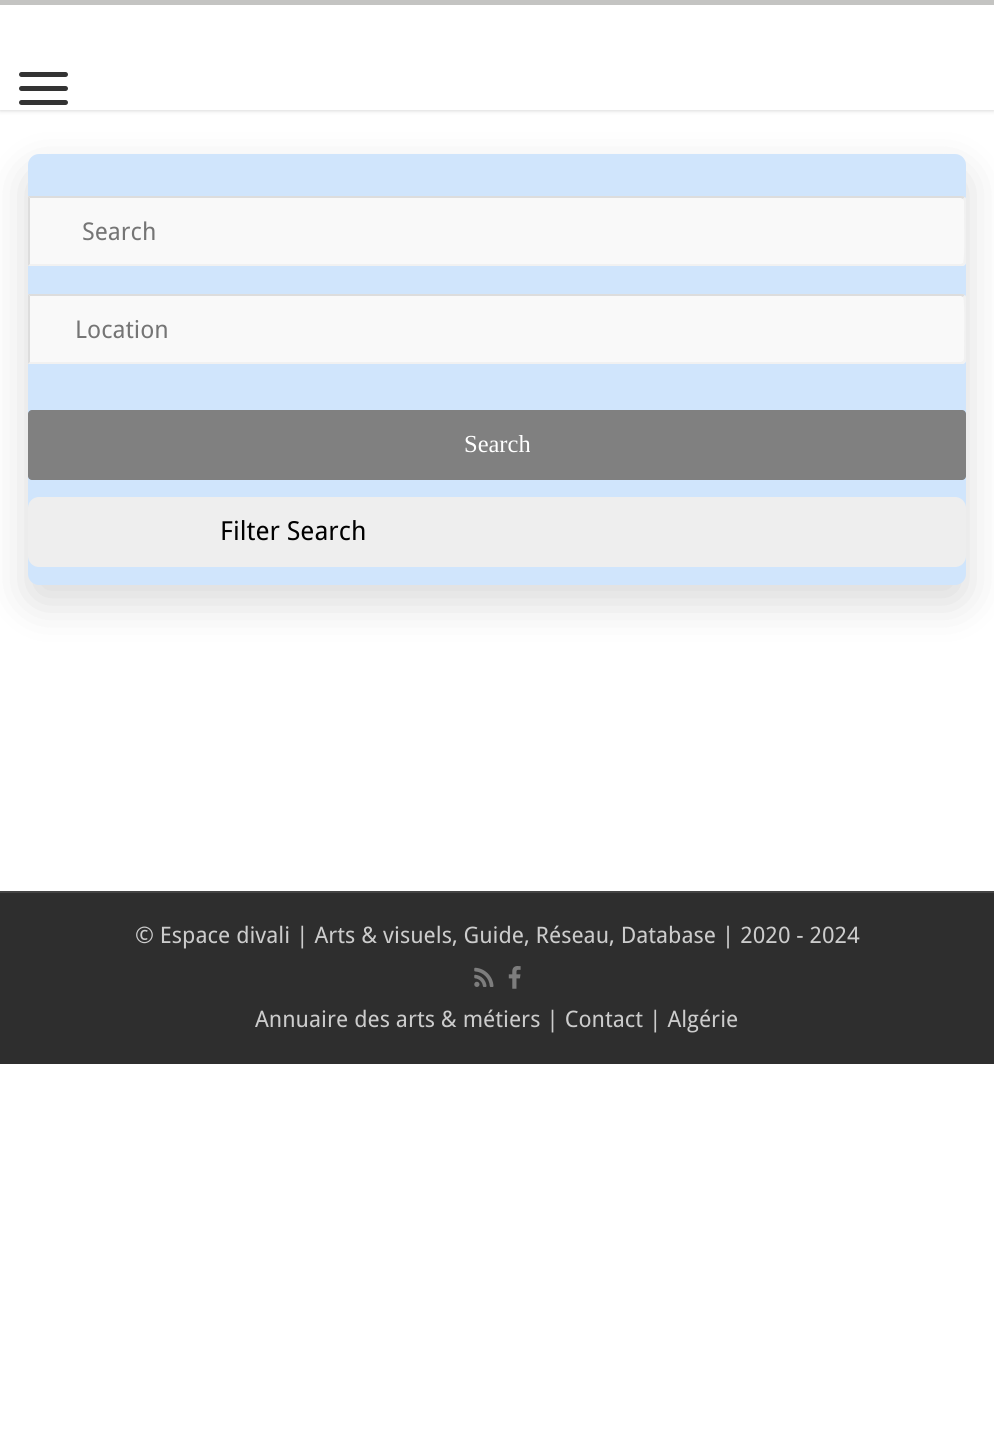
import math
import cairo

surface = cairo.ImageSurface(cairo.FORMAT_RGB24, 994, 1452)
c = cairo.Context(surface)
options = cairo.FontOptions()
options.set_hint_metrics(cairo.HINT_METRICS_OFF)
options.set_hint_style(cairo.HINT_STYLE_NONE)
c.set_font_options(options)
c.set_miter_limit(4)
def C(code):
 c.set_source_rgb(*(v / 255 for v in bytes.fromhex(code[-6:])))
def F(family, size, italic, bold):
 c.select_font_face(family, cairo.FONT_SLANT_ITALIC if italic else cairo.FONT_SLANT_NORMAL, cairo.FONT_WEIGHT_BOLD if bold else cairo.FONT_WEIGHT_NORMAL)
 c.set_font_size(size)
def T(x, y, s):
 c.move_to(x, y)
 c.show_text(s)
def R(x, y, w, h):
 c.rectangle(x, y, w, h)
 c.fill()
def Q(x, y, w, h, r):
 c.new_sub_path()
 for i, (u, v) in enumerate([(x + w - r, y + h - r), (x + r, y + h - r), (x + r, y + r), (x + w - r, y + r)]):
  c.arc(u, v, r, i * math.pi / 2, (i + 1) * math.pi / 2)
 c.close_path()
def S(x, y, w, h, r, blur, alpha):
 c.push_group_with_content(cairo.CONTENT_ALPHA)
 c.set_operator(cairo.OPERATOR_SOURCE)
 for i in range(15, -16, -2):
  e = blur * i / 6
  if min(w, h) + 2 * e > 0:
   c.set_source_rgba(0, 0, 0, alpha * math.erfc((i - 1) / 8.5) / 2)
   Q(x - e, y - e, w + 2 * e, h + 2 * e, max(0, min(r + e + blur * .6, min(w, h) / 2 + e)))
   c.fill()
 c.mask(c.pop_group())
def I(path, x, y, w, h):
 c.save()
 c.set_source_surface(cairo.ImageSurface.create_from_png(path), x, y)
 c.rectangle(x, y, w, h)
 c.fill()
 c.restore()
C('ffffff')
c.paint()
c.save()
c.rectangle(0,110,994,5)
c.clip()
C('cacaca')
S(0,0,994,110,0,2.5,1)
c.restore()
C('c4c4c2')
R(0,0,994,5)
C('333333')
Q(19,72,49,5,2.5)
c.fill()
Q(19,86,49,5,2.5)
c.fill()
Q(19,100,49,5,2.5)
c.fill()
C('000000')
S(28,172,938,430,11,22,.15)
C('d0e5fc')
Q(28,154,938,431,11)
c.fill()
C('f9f9f9')
c.new_path()
c.move_to(28,196)
c.line_to(961,196)
c.curve_to(964,196,966,198,966,201)
c.line_to(966,261)
c.curve_to(966,264,964,266,961,266)
c.line_to(28,266)
c.close_path()
c.fill()
C('dddddd')
c.new_path()
c.move_to(28,196)
c.line_to(30,198)
c.line_to(961,198)
c.line_to(963,199)
c.line_to(965,197)
c.curve_to(964,196,962,196,961,196)
c.close_path()
c.fill()
C('f1f1f1')
c.new_path()
c.move_to(966,261)
c.line_to(966,201)
c.curve_to(966,200,966,198,965,197)
c.line_to(963,199)
c.line_to(964,201)
c.line_to(964,211)
c.curve_to(964,217,965,261,963,263)
c.line_to(965,265)
c.curve_to(966,264,966,262,966,261)
c.close_path()
c.fill()
c.new_path()
c.move_to(961,266)
c.curve_to(962,266,964,266,965,265)
c.line_to(963,263)
c.line_to(961,264)
c.line_to(30,264)
c.line_to(28,266)
c.close_path()
c.fill()
C('dddddd')
c.new_path()
c.move_to(28,196)
c.line_to(28,266)
c.line_to(30,264)
c.line_to(30,198)
c.close_path()
c.fill()
F('Droid Sans',24.5,0,0)
C('757575')
T(82,240,'Search')
C('f9f9f9')
c.new_path()
c.move_to(28,294)
c.line_to(961,294)
c.curve_to(964,294,966,296,966,299)
c.line_to(966,359)
c.curve_to(966,362,964,364,961,364)
c.line_to(28,364)
c.close_path()
c.fill()
C('dddddd')
c.new_path()
c.move_to(28,294)
c.line_to(30,296)
c.line_to(961,296)
c.line_to(963,297)
c.line_to(965,295)
c.curve_to(964,294,962,294,961,294)
c.close_path()
c.fill()
C('f1f1f1')
c.new_path()
c.move_to(966,359)
c.line_to(966,299)
c.curve_to(966,298,966,296,965,295)
c.line_to(963,297)
c.curve_to(965,299,964,343,964,349)
c.line_to(964,359)
c.line_to(963,361)
c.line_to(965,363)
c.curve_to(966,362,966,360,966,359)
c.close_path()
c.fill()
c.new_path()
c.move_to(961,364)
c.curve_to(962,364,964,364,965,363)
c.line_to(963,361)
c.line_to(961,362)
c.line_to(30,362)
c.line_to(28,364)
c.close_path()
c.fill()
C('dddddd')
c.new_path()
c.move_to(28,294)
c.line_to(28,364)
c.line_to(30,362)
c.line_to(30,296)
c.close_path()
c.fill()
C('757575')
T(75,338,'Location')
C('808080')
Q(28,410,938,70,4)
c.fill()
F('Liberation Serif',24.5,0,0)
C('ffffff')
T(464,452,'Search')
C('eeeeee')
Q(28,497,938,70,11)
c.fill()
F('Droid Sans',26.25,0,0)
C('000000')
T(220,540,'Filter Search')
C('2e2e2e')
R(0,893,994,171)
C('444444')
R(0,891,994,2)
F('Droid Sans',22.75,0,0)
C('cccccc')
T(135,943,'© Espace divali | Arts & visuels, Guide, Réseau, Database | 2020 - 2024')
I('1.png',474,967,20,20)
I('2.png',508,966,13,23)
T(255,1027,'Annuaire des arts & métiers | Contact | Algérie')
surface.write_to_png('o.png')
